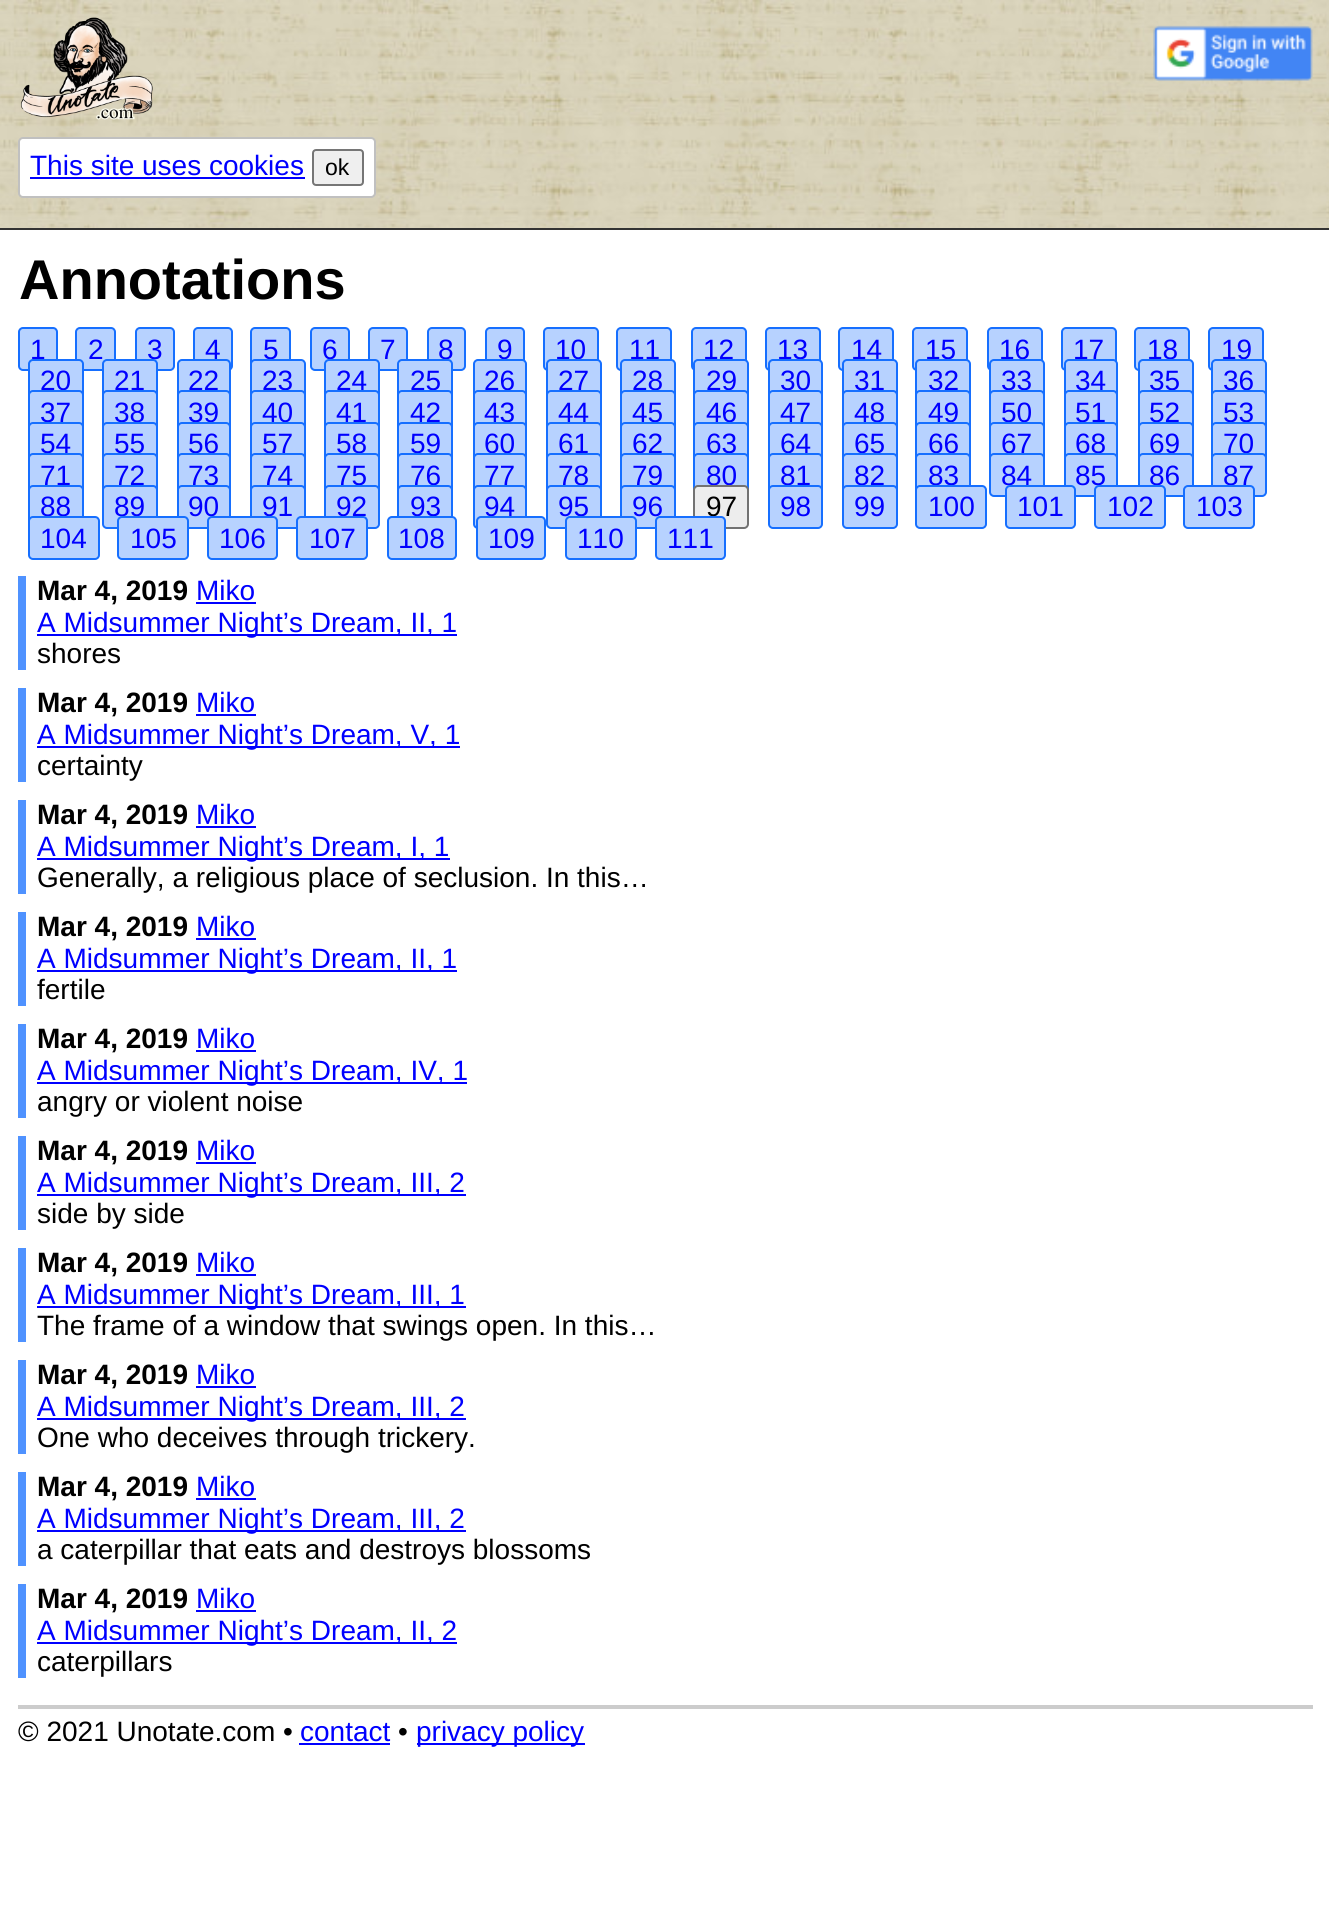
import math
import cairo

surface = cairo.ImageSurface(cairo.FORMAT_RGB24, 1329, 1924)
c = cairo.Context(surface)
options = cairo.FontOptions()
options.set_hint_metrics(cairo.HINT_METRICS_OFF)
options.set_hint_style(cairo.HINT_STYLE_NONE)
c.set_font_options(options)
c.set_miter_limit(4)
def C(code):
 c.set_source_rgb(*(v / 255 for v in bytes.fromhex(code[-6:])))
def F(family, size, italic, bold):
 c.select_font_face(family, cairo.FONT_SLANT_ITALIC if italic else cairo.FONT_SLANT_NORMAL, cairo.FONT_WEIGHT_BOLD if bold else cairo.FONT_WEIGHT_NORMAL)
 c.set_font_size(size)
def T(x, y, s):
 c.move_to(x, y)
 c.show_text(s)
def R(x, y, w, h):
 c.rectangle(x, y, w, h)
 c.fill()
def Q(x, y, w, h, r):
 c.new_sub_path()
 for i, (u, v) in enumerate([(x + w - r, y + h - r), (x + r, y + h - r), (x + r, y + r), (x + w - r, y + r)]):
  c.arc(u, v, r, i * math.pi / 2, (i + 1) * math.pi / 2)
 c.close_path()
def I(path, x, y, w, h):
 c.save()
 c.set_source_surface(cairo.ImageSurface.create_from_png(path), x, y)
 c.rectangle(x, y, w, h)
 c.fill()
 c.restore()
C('ffffff')
c.paint()
I('1.png',0,0,1329,228)
C('333333')
R(0,228,1329,2)
I('2.png',1153,25,160,56)
I('3.png',20,17,133,103)
C('ffffff')
Q(19,138,356,59,4)
c.fill_preserve()
C('c0c0c0')
c.stroke()
F('Liberation Sans',28,0,0)
C('0000ff')
T(30,175,'This site uses cookies')
R(30,177,275,2)
C('efefef')
Q(313,150,50,35,3)
c.fill_preserve()
C('767676')
c.stroke()
F('Liberation Sans',23,0,0)
C('000000')
T(325,175,'ok')
F('Liberation Sans',56,0,1)
T(19,299,'Annotations')
C('b7d2ff')
Q(19,328,38,42,4)
c.fill_preserve()
C('166fff')
c.stroke()
F('Liberation Sans',28,0,0)
C('0000ff')
T(30,359,'1')
C('b7d2ff')
Q(76,328,39,42,4)
c.fill_preserve()
C('166fff')
c.stroke()
C('0000ff')
T(88,359,'2')
C('b7d2ff')
Q(136,328,38,42,4)
c.fill_preserve()
C('166fff')
c.stroke()
C('0000ff')
T(147,359,'3')
C('b7d2ff')
Q(194,328,38,42,4)
c.fill_preserve()
C('166fff')
c.stroke()
C('0000ff')
T(205,359,'4')
C('b7d2ff')
Q(251,328,39,42,4)
c.fill_preserve()
C('166fff')
c.stroke()
C('0000ff')
T(263,359,'5')
C('b7d2ff')
Q(311,328,38,42,4)
c.fill_preserve()
C('166fff')
c.stroke()
C('0000ff')
T(322,359,'6')
C('b7d2ff')
Q(369,328,38,42,4)
c.fill_preserve()
C('166fff')
c.stroke()
C('0000ff')
T(380,359,'7')
C('b7d2ff')
Q(428,328,37,42,4)
c.fill_preserve()
C('166fff')
c.stroke()
C('0000ff')
T(438,359,'8')
C('b7d2ff')
Q(486,328,38,42,4)
c.fill_preserve()
C('166fff')
c.stroke()
C('0000ff')
T(497,359,'9')
C('b7d2ff')
Q(544,328,54,42,4)
c.fill_preserve()
C('166fff')
c.stroke()
C('0000ff')
T(555,359,'10')
C('b7d2ff')
Q(617,328,54,42,4)
c.fill_preserve()
C('166fff')
c.stroke()
C('0000ff')
T(629,359,'11')
C('b7d2ff')
Q(692,328,54,42,4)
c.fill_preserve()
C('166fff')
c.stroke()
C('0000ff')
T(703,359,'12')
C('b7d2ff')
Q(766,328,54,42,4)
c.fill_preserve()
C('166fff')
c.stroke()
C('0000ff')
T(777,359,'13')
C('b7d2ff')
Q(839,328,54,42,4)
c.fill_preserve()
C('166fff')
c.stroke()
C('0000ff')
T(851,359,'14')
C('b7d2ff')
Q(913,328,54,42,4)
c.fill_preserve()
C('166fff')
c.stroke()
C('0000ff')
T(925,359,'15')
C('b7d2ff')
Q(988,328,54,42,4)
c.fill_preserve()
C('166fff')
c.stroke()
C('0000ff')
T(999,359,'16')
C('b7d2ff')
Q(1062,328,54,42,4)
c.fill_preserve()
C('166fff')
c.stroke()
C('0000ff')
T(1073,359,'17')
C('b7d2ff')
Q(1135,328,54,42,4)
c.fill_preserve()
C('166fff')
c.stroke()
C('0000ff')
T(1147,359,'18')
C('b7d2ff')
Q(1209,328,54,42,4)
c.fill_preserve()
C('166fff')
c.stroke()
C('0000ff')
T(1221,359,'19')
C('b7d2ff')
Q(29,360,54,42,4)
c.fill_preserve()
C('166fff')
c.stroke()
C('0000ff')
T(40,390,'20')
C('b7d2ff')
Q(103,360,54,42,4)
c.fill_preserve()
C('166fff')
c.stroke()
C('0000ff')
T(114,390,'21')
C('b7d2ff')
Q(178,360,52,42,4)
c.fill_preserve()
C('166fff')
c.stroke()
C('0000ff')
T(188,390,'22')
C('b7d2ff')
Q(251,360,54,42,4)
c.fill_preserve()
C('166fff')
c.stroke()
C('0000ff')
T(262,390,'23')
C('b7d2ff')
Q(325,360,54,42,4)
c.fill_preserve()
C('166fff')
c.stroke()
C('0000ff')
T(336,390,'24')
C('b7d2ff')
Q(398,360,54,42,4)
c.fill_preserve()
C('166fff')
c.stroke()
C('0000ff')
T(410,390,'25')
C('b7d2ff')
Q(474,360,52,42,4)
c.fill_preserve()
C('166fff')
c.stroke()
C('0000ff')
T(484,390,'26')
C('b7d2ff')
Q(547,360,54,42,4)
c.fill_preserve()
C('166fff')
c.stroke()
C('0000ff')
T(558,390,'27')
C('b7d2ff')
Q(621,360,54,42,4)
c.fill_preserve()
C('166fff')
c.stroke()
C('0000ff')
T(632,390,'28')
C('b7d2ff')
Q(694,360,54,42,4)
c.fill_preserve()
C('166fff')
c.stroke()
C('0000ff')
T(706,390,'29')
C('b7d2ff')
Q(769,360,53,42,4)
c.fill_preserve()
C('166fff')
c.stroke()
C('0000ff')
T(780,390,'30')
C('b7d2ff')
Q(843,360,54,42,4)
c.fill_preserve()
C('166fff')
c.stroke()
C('0000ff')
T(854,390,'31')
C('b7d2ff')
Q(916,360,54,42,4)
c.fill_preserve()
C('166fff')
c.stroke()
C('0000ff')
T(928,390,'32')
C('b7d2ff')
Q(990,360,54,42,4)
c.fill_preserve()
C('166fff')
c.stroke()
C('0000ff')
T(1001,390,'33')
C('b7d2ff')
Q(1065,360,52,42,4)
c.fill_preserve()
C('166fff')
c.stroke()
C('0000ff')
T(1075,390,'34')
C('b7d2ff')
Q(1139,360,54,42,4)
c.fill_preserve()
C('166fff')
c.stroke()
C('0000ff')
T(1149,390,'35')
C('b7d2ff')
Q(1212,360,54,42,4)
c.fill_preserve()
C('166fff')
c.stroke()
C('0000ff')
T(1223,390,'36')
C('b7d2ff')
Q(29,391,54,42,4)
c.fill_preserve()
C('166fff')
c.stroke()
C('0000ff')
T(40,422,'37')
C('b7d2ff')
Q(103,391,54,42,4)
c.fill_preserve()
C('166fff')
c.stroke()
C('0000ff')
T(114,422,'38')
C('b7d2ff')
Q(178,391,52,42,4)
c.fill_preserve()
C('166fff')
c.stroke()
C('0000ff')
T(188,422,'39')
C('b7d2ff')
Q(251,391,54,42,4)
c.fill_preserve()
C('166fff')
c.stroke()
C('0000ff')
T(262,422,'40')
C('b7d2ff')
Q(325,391,54,42,4)
c.fill_preserve()
C('166fff')
c.stroke()
C('0000ff')
T(336,422,'41')
C('b7d2ff')
Q(398,391,54,42,4)
c.fill_preserve()
C('166fff')
c.stroke()
C('0000ff')
T(410,422,'42')
C('b7d2ff')
Q(474,391,52,42,4)
c.fill_preserve()
C('166fff')
c.stroke()
C('0000ff')
T(484,422,'43')
C('b7d2ff')
Q(547,391,54,42,4)
c.fill_preserve()
C('166fff')
c.stroke()
C('0000ff')
T(558,422,'44')
C('b7d2ff')
Q(621,391,54,42,4)
c.fill_preserve()
C('166fff')
c.stroke()
C('0000ff')
T(632,422,'45')
C('b7d2ff')
Q(694,391,54,42,4)
c.fill_preserve()
C('166fff')
c.stroke()
C('0000ff')
T(706,422,'46')
C('b7d2ff')
Q(769,391,53,42,4)
c.fill_preserve()
C('166fff')
c.stroke()
C('0000ff')
T(780,422,'47')
C('b7d2ff')
Q(843,391,54,42,4)
c.fill_preserve()
C('166fff')
c.stroke()
C('0000ff')
T(854,422,'48')
C('b7d2ff')
Q(916,391,54,42,4)
c.fill_preserve()
C('166fff')
c.stroke()
C('0000ff')
T(928,422,'49')
C('b7d2ff')
Q(990,391,54,42,4)
c.fill_preserve()
C('166fff')
c.stroke()
C('0000ff')
T(1001,422,'50')
C('b7d2ff')
Q(1065,391,52,42,4)
c.fill_preserve()
C('166fff')
c.stroke()
C('0000ff')
T(1075,422,'51')
C('b7d2ff')
Q(1139,391,54,42,4)
c.fill_preserve()
C('166fff')
c.stroke()
C('0000ff')
T(1149,422,'52')
C('b7d2ff')
Q(1212,391,54,42,4)
c.fill_preserve()
C('166fff')
c.stroke()
C('0000ff')
T(1223,422,'53')
C('b7d2ff')
Q(29,423,54,42,4)
c.fill_preserve()
C('166fff')
c.stroke()
C('0000ff')
T(40,453,'54')
C('b7d2ff')
Q(103,423,54,42,4)
c.fill_preserve()
C('166fff')
c.stroke()
C('0000ff')
T(114,453,'55')
C('b7d2ff')
Q(178,423,52,42,4)
c.fill_preserve()
C('166fff')
c.stroke()
C('0000ff')
T(188,453,'56')
C('b7d2ff')
Q(251,423,54,42,4)
c.fill_preserve()
C('166fff')
c.stroke()
C('0000ff')
T(262,453,'57')
C('b7d2ff')
Q(325,423,54,42,4)
c.fill_preserve()
C('166fff')
c.stroke()
C('0000ff')
T(336,453,'58')
C('b7d2ff')
Q(398,423,54,42,4)
c.fill_preserve()
C('166fff')
c.stroke()
C('0000ff')
T(410,453,'59')
C('b7d2ff')
Q(474,423,52,42,4)
c.fill_preserve()
C('166fff')
c.stroke()
C('0000ff')
T(484,453,'60')
C('b7d2ff')
Q(547,423,54,42,4)
c.fill_preserve()
C('166fff')
c.stroke()
C('0000ff')
T(558,453,'61')
C('b7d2ff')
Q(621,423,54,42,4)
c.fill_preserve()
C('166fff')
c.stroke()
C('0000ff')
T(632,453,'62')
C('b7d2ff')
Q(694,423,54,42,4)
c.fill_preserve()
C('166fff')
c.stroke()
C('0000ff')
T(706,453,'63')
C('b7d2ff')
Q(769,423,53,42,4)
c.fill_preserve()
C('166fff')
c.stroke()
C('0000ff')
T(780,453,'64')
C('b7d2ff')
Q(843,423,54,42,4)
c.fill_preserve()
C('166fff')
c.stroke()
C('0000ff')
T(854,453,'65')
C('b7d2ff')
Q(916,423,54,42,4)
c.fill_preserve()
C('166fff')
c.stroke()
C('0000ff')
T(928,453,'66')
C('b7d2ff')
Q(990,423,54,42,4)
c.fill_preserve()
C('166fff')
c.stroke()
C('0000ff')
T(1001,453,'67')
C('b7d2ff')
Q(1065,423,52,42,4)
c.fill_preserve()
C('166fff')
c.stroke()
C('0000ff')
T(1075,453,'68')
C('b7d2ff')
Q(1139,423,54,42,4)
c.fill_preserve()
C('166fff')
c.stroke()
C('0000ff')
T(1149,453,'69')
C('b7d2ff')
Q(1212,423,54,42,4)
c.fill_preserve()
C('166fff')
c.stroke()
C('0000ff')
T(1223,453,'70')
C('b7d2ff')
Q(29,454,54,42,4)
c.fill_preserve()
C('166fff')
c.stroke()
C('0000ff')
T(40,485,'71')
C('b7d2ff')
Q(103,454,54,42,4)
c.fill_preserve()
C('166fff')
c.stroke()
C('0000ff')
T(114,485,'72')
C('b7d2ff')
Q(178,454,52,42,4)
c.fill_preserve()
C('166fff')
c.stroke()
C('0000ff')
T(188,485,'73')
C('b7d2ff')
Q(251,454,54,42,4)
c.fill_preserve()
C('166fff')
c.stroke()
C('0000ff')
T(262,485,'74')
C('b7d2ff')
Q(325,454,54,42,4)
c.fill_preserve()
C('166fff')
c.stroke()
C('0000ff')
T(336,485,'75')
C('b7d2ff')
Q(398,454,54,42,4)
c.fill_preserve()
C('166fff')
c.stroke()
C('0000ff')
T(410,485,'76')
C('b7d2ff')
Q(474,454,52,42,4)
c.fill_preserve()
C('166fff')
c.stroke()
C('0000ff')
T(484,485,'77')
C('b7d2ff')
Q(547,454,54,42,4)
c.fill_preserve()
C('166fff')
c.stroke()
C('0000ff')
T(558,485,'78')
C('b7d2ff')
Q(621,454,54,42,4)
c.fill_preserve()
C('166fff')
c.stroke()
C('0000ff')
T(632,485,'79')
C('b7d2ff')
Q(694,454,54,42,4)
c.fill_preserve()
C('166fff')
c.stroke()
C('0000ff')
T(706,485,'80')
C('b7d2ff')
Q(769,454,53,42,4)
c.fill_preserve()
C('166fff')
c.stroke()
C('0000ff')
T(780,485,'81')
C('b7d2ff')
Q(843,454,54,42,4)
c.fill_preserve()
C('166fff')
c.stroke()
C('0000ff')
T(854,485,'82')
C('b7d2ff')
Q(916,454,54,42,4)
c.fill_preserve()
C('166fff')
c.stroke()
C('0000ff')
T(928,485,'83')
C('b7d2ff')
Q(990,454,54,42,4)
c.fill_preserve()
C('166fff')
c.stroke()
C('0000ff')
T(1001,485,'84')
C('b7d2ff')
Q(1065,454,52,42,4)
c.fill_preserve()
C('166fff')
c.stroke()
C('0000ff')
T(1075,485,'85')
C('b7d2ff')
Q(1139,454,54,42,4)
c.fill_preserve()
C('166fff')
c.stroke()
C('0000ff')
T(1149,485,'86')
C('b7d2ff')
Q(1212,454,54,42,4)
c.fill_preserve()
C('166fff')
c.stroke()
C('0000ff')
T(1223,485,'87')
C('b7d2ff')
Q(29,486,54,42,4)
c.fill_preserve()
C('166fff')
c.stroke()
C('0000ff')
T(40,516,'88')
C('b7d2ff')
Q(103,486,54,42,4)
c.fill_preserve()
C('166fff')
c.stroke()
C('0000ff')
T(114,516,'89')
C('b7d2ff')
Q(178,486,52,42,4)
c.fill_preserve()
C('166fff')
c.stroke()
C('0000ff')
T(188,516,'90')
C('b7d2ff')
Q(251,486,54,42,4)
c.fill_preserve()
C('166fff')
c.stroke()
C('0000ff')
T(262,516,'91')
C('b7d2ff')
Q(325,486,54,42,4)
c.fill_preserve()
C('166fff')
c.stroke()
C('0000ff')
T(336,516,'92')
C('b7d2ff')
Q(398,486,54,42,4)
c.fill_preserve()
C('166fff')
c.stroke()
C('0000ff')
T(410,516,'93')
C('b7d2ff')
Q(474,486,52,42,4)
c.fill_preserve()
C('166fff')
c.stroke()
C('0000ff')
T(484,516,'94')
C('b7d2ff')
Q(547,486,54,42,4)
c.fill_preserve()
C('166fff')
c.stroke()
C('0000ff')
T(558,516,'95')
C('b7d2ff')
Q(621,486,54,42,4)
c.fill_preserve()
C('166fff')
c.stroke()
C('0000ff')
T(632,516,'96')
C('ededed')
Q(694,486,54,42,4)
c.fill_preserve()
C('727272')
c.stroke()
C('000000')
T(706,516,'97')
C('b7d2ff')
Q(769,486,53,42,4)
c.fill_preserve()
C('166fff')
c.stroke()
C('0000ff')
T(780,516,'98')
C('b7d2ff')
Q(843,486,54,42,4)
c.fill_preserve()
C('166fff')
c.stroke()
C('0000ff')
T(854,516,'99')
C('b7d2ff')
Q(916,486,70,42,4)
c.fill_preserve()
C('166fff')
c.stroke()
C('0000ff')
T(928,516,'100')
C('b7d2ff')
Q(1006,486,69,42,4)
c.fill_preserve()
C('166fff')
c.stroke()
C('0000ff')
T(1017,516,'101')
C('b7d2ff')
Q(1095,486,70,42,4)
c.fill_preserve()
C('166fff')
c.stroke()
C('0000ff')
T(1107,516,'102')
C('b7d2ff')
Q(1184,486,70,42,4)
c.fill_preserve()
C('166fff')
c.stroke()
C('0000ff')
T(1196,516,'103')
C('b7d2ff')
Q(29,517,70,42,4)
c.fill_preserve()
C('166fff')
c.stroke()
C('0000ff')
T(40,548,'104')
C('b7d2ff')
Q(118,517,70,42,4)
c.fill_preserve()
C('166fff')
c.stroke()
C('0000ff')
T(130,548,'105')
C('b7d2ff')
Q(208,517,69,42,4)
c.fill_preserve()
C('166fff')
c.stroke()
C('0000ff')
T(219,548,'106')
C('b7d2ff')
Q(297,517,70,42,4)
c.fill_preserve()
C('166fff')
c.stroke()
C('0000ff')
T(309,548,'107')
C('b7d2ff')
Q(388,517,68,42,4)
c.fill_preserve()
C('166fff')
c.stroke()
C('0000ff')
T(398,548,'108')
C('b7d2ff')
Q(477,517,68,42,4)
c.fill_preserve()
C('166fff')
c.stroke()
C('0000ff')
T(488,548,'109')
C('b7d2ff')
Q(566,517,70,42,4)
c.fill_preserve()
C('166fff')
c.stroke()
C('0000ff')
T(577,548,'110')
C('b7d2ff')
Q(656,517,69,42,4)
c.fill_preserve()
C('166fff')
c.stroke()
C('0000ff')
T(667,548,'111')
C('4f92ff')
R(18,576,8,94)
F('Liberation Sans',28,0,1)
C('000000')
T(37,600,'Mar 4, 2019')
F('Liberation Sans',28,0,0)
C('0000ff')
T(196,600,'Miko')
R(196,602,60,2)
R(37,634,420,2)
T(37,632,'A Midsummer Night’s Dream, II, 1')
C('000000')
T(37,663,'shores')
C('4f92ff')
R(18,688,8,94)
F('Liberation Sans',28,0,1)
C('000000')
T(37,712,'Mar 4, 2019')
F('Liberation Sans',28,0,0)
C('0000ff')
T(196,712,'Miko')
R(196,714,60,2)
R(37,746,423,2)
T(37,744,'A Midsummer Night’s Dream, V, 1')
C('000000')
T(37,775,'certainty')
C('4f92ff')
R(18,800,8,94)
F('Liberation Sans',28,0,1)
C('000000')
T(37,824,'Mar 4, 2019')
F('Liberation Sans',28,0,0)
C('0000ff')
T(196,824,'Miko')
R(196,826,60,2)
R(37,858,413,2)
T(37,856,'A Midsummer Night’s Dream, I, 1')
C('000000')
T(37,887,'Generally, a religious place of seclusion. In this…')
C('4f92ff')
R(18,912,8,94)
F('Liberation Sans',28,0,1)
C('000000')
T(37,936,'Mar 4, 2019')
F('Liberation Sans',28,0,0)
C('0000ff')
T(196,936,'Miko')
R(196,938,60,2)
R(37,970,420,2)
T(37,968,'A Midsummer Night’s Dream, II, 1')
C('000000')
T(37,999,'fertile')
C('4f92ff')
R(18,1024,8,94)
F('Liberation Sans',28,0,1)
C('000000')
T(37,1048,'Mar 4, 2019')
F('Liberation Sans',28,0,0)
C('0000ff')
T(196,1048,'Miko')
R(196,1050,60,2)
R(37,1082,430,2)
T(37,1080,'A Midsummer Night’s Dream, IV, 1')
C('000000')
T(37,1111,'angry or violent noise')
C('4f92ff')
R(18,1136,8,94)
F('Liberation Sans',28,0,1)
C('000000')
T(37,1160,'Mar 4, 2019')
F('Liberation Sans',28,0,0)
C('0000ff')
T(196,1160,'Miko')
R(196,1162,60,2)
R(37,1194,429,2)
T(37,1192,'A Midsummer Night’s Dream, III, 2')
C('000000')
T(37,1223,'side by side')
C('4f92ff')
R(18,1248,8,94)
F('Liberation Sans',28,0,1)
C('000000')
T(37,1272,'Mar 4, 2019')
F('Liberation Sans',28,0,0)
C('0000ff')
T(196,1272,'Miko')
R(196,1274,60,2)
R(37,1306,429,2)
T(37,1304,'A Midsummer Night’s Dream, III, 1')
C('000000')
T(37,1335,'The frame of a window that swings open. In this…')
C('4f92ff')
R(18,1360,8,94)
F('Liberation Sans',28,0,1)
C('000000')
T(37,1384,'Mar 4, 2019')
F('Liberation Sans',28,0,0)
C('0000ff')
T(196,1384,'Miko')
R(196,1386,60,2)
R(37,1418,429,2)
T(37,1416,'A Midsummer Night’s Dream, III, 2')
C('000000')
T(37,1447,'One who deceives through trickery.')
C('4f92ff')
R(18,1472,8,94)
F('Liberation Sans',28,0,1)
C('000000')
T(37,1496,'Mar 4, 2019')
F('Liberation Sans',28,0,0)
C('0000ff')
T(196,1496,'Miko')
R(196,1498,60,2)
R(37,1530,429,2)
T(37,1528,'A Midsummer Night’s Dream, III, 2')
C('000000')
T(37,1559,'a caterpillar that eats and destroys blossoms')
C('4f92ff')
R(18,1584,8,94)
F('Liberation Sans',28,0,1)
C('000000')
T(37,1608,'Mar 4, 2019')
F('Liberation Sans',28,0,0)
C('0000ff')
T(196,1608,'Miko')
R(196,1610,60,2)
R(37,1642,420,2)
T(37,1640,'A Midsummer Night’s Dream, II, 2')
C('000000')
T(37,1671,'caterpillars')
C('cccccc')
R(18,1705,1295,4)
C('000000')
T(18,1741,'© 2021 Unotate.com •')
C('0000ff')
T(300,1741,'contact')
R(299,1743,91,2)
C('000000')
T(398,1741,'•')
C('0000ff')
R(417,1743,168,2)
T(416,1741,'privacy policy')
surface.write_to_png('o.png')
